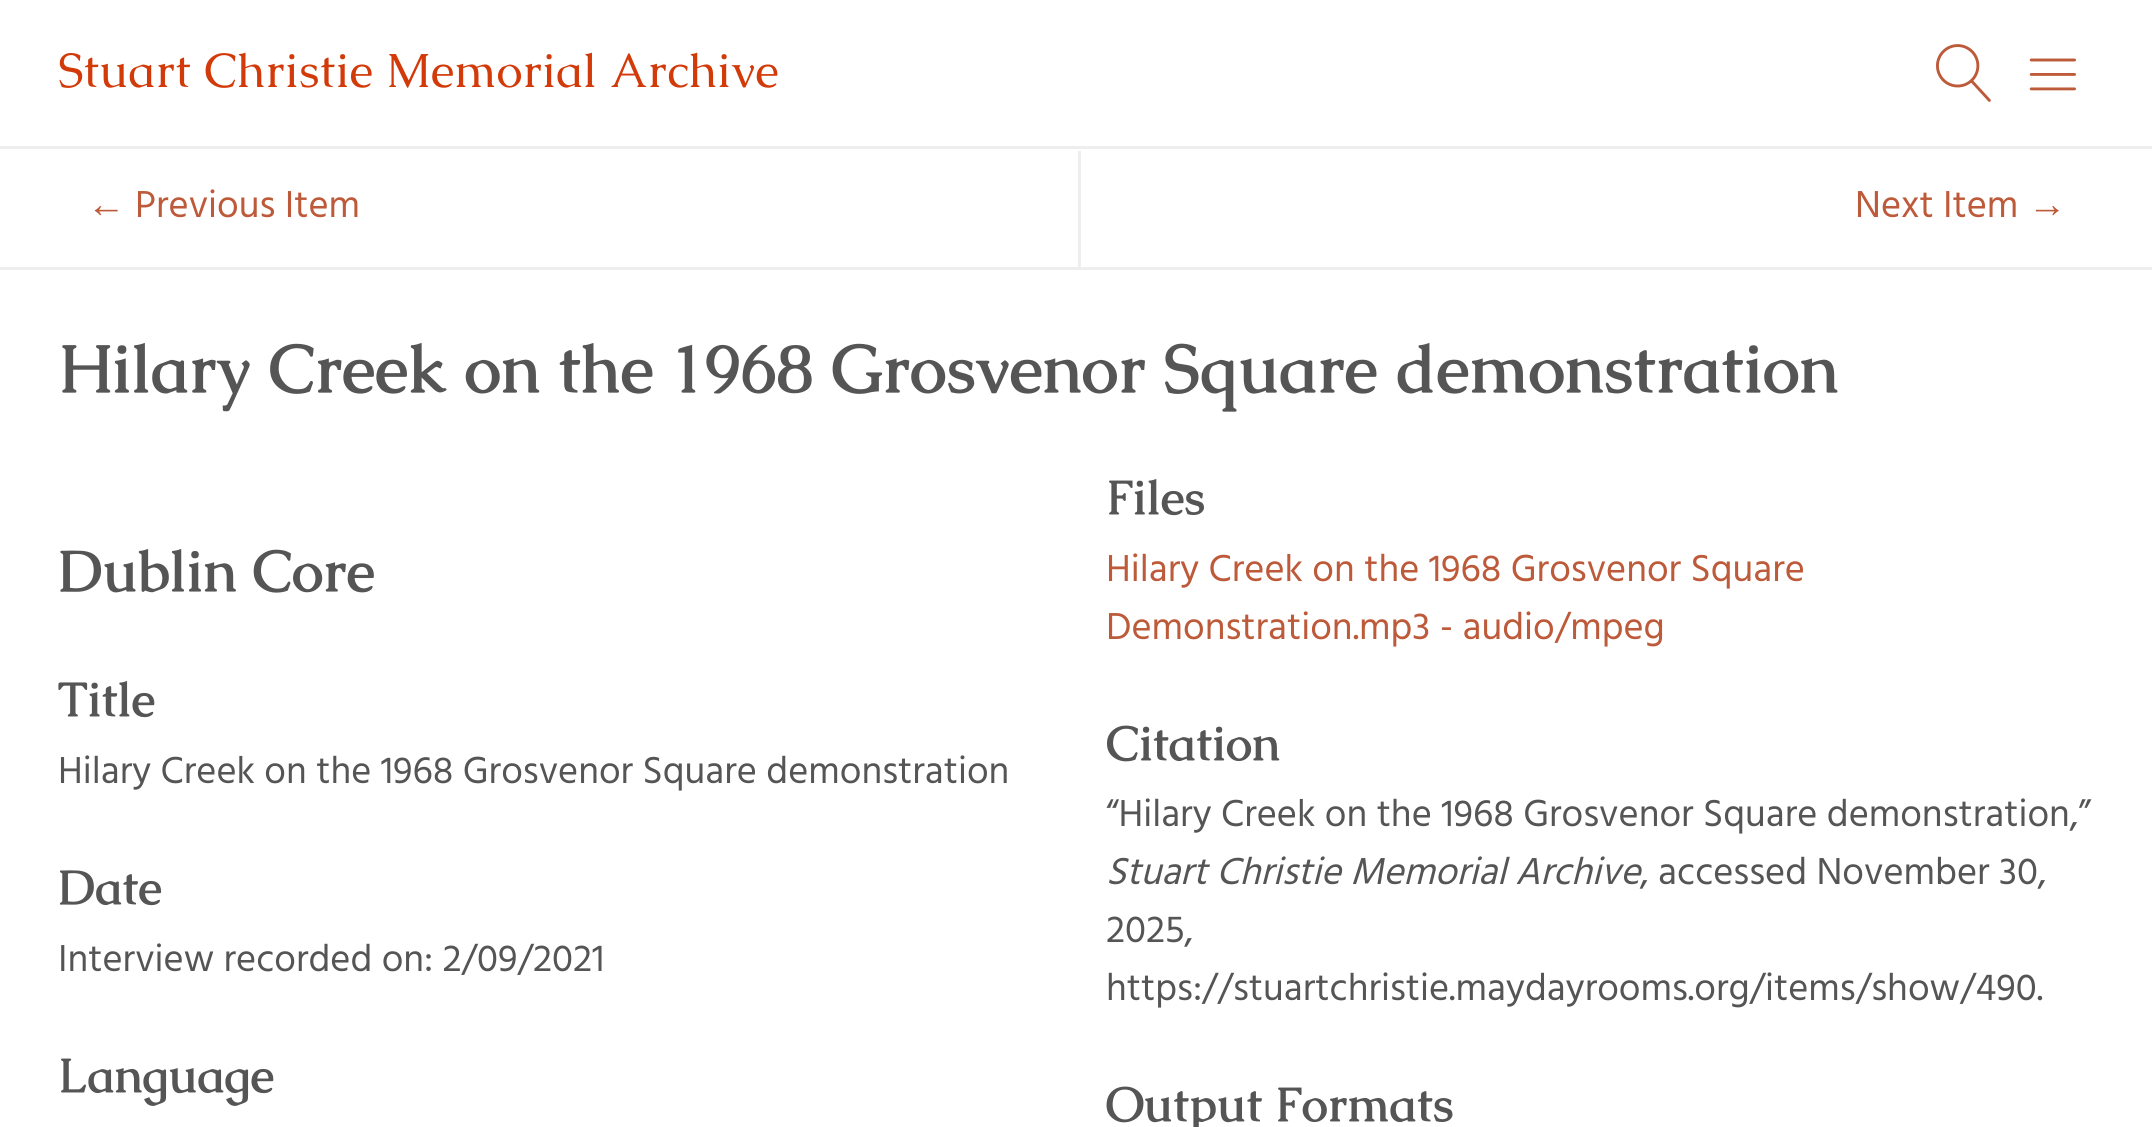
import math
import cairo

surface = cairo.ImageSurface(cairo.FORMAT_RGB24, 2152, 1127)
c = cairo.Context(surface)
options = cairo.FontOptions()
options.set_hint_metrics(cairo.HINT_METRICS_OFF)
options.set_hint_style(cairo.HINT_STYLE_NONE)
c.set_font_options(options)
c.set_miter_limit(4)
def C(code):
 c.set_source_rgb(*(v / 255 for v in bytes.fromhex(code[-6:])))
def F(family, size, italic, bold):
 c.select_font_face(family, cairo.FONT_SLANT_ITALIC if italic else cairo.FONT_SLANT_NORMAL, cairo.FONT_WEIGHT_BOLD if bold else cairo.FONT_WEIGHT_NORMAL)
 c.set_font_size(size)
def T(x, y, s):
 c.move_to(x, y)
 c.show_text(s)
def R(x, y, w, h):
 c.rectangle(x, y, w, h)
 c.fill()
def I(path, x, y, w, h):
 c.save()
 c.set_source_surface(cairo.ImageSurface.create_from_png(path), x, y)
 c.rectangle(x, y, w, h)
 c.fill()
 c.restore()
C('ffffff')
c.paint()
F('Caudex',48.1,0,0)
C('d23a09')
T(58,87,'Stuart Christie Memorial Archive')
I('1.png',1936,44,55,58)
I('2.png',2029,58,47,33)
C('eeeeee')
R(0,146,2152,3)
R(0,267,2152,3)
F('Liberation Sans',38.5,0,0)
C('bd5a3a')
T(87,217,'←')
F('Hind',38.5,0,0)
T(135,217,'Previous Item')
C('eeeeee')
R(1078,151,3,116)
C('bd5a3a')
T(1855,217,'Next Item')
F('Liberation Sans',38.5,0,0)
T(2028,217,'→')
F('Caudex',67.4,0,1)
C('555555')
T(58,392,'Hilary Creek on the 1968 Grosvenor Square demonstration')
F('Caudex',57.75,0,1)
T(58,591,'Dublin Core')
F('Caudex',48.1,0,1)
T(58,716,'Title')
F('Hind',38.5,0,0)
T(58,783,'Hilary Creek on the 1968 Grosvenor Square demonstration')
F('Caudex',48.1,0,1)
T(58,904,'Date')
F('Hind',38.5,0,0)
T(58,971,'Interview recorded on: 2/09/2021')
F('Caudex',48.1,0,1)
T(58,1092,'Language')
T(1106,514,'Files')
F('Hind',38.5,0,0)
C('bd5a3a')
T(1106,581,'Hilary Creek on the 1968 Grosvenor Square')
T(1106,639,'Demonstration.mp3 - audio/mpeg')
F('Caudex',48.1,0,1)
C('555555')
T(1106,760,'Citation')
F('Hind',38.5,0,0)
T(1106,826,'“Hilary Creek on the 1968 Grosvenor Square demonstration,”')
F('Hind',38.5,1,0)
T(1106,884,'Stuart Christie Memorial Archive')
F('Hind',38.5,0,0)
T(1640,884,', accessed November 30,')
T(1106,942,'2025,')
T(1106,1000,'https://stuartchristie.maydayrooms.org/items/show/490.')
F('Caudex',48.1,0,1)
T(1106,1121,'Output Formats')
surface.write_to_png('o.png')
